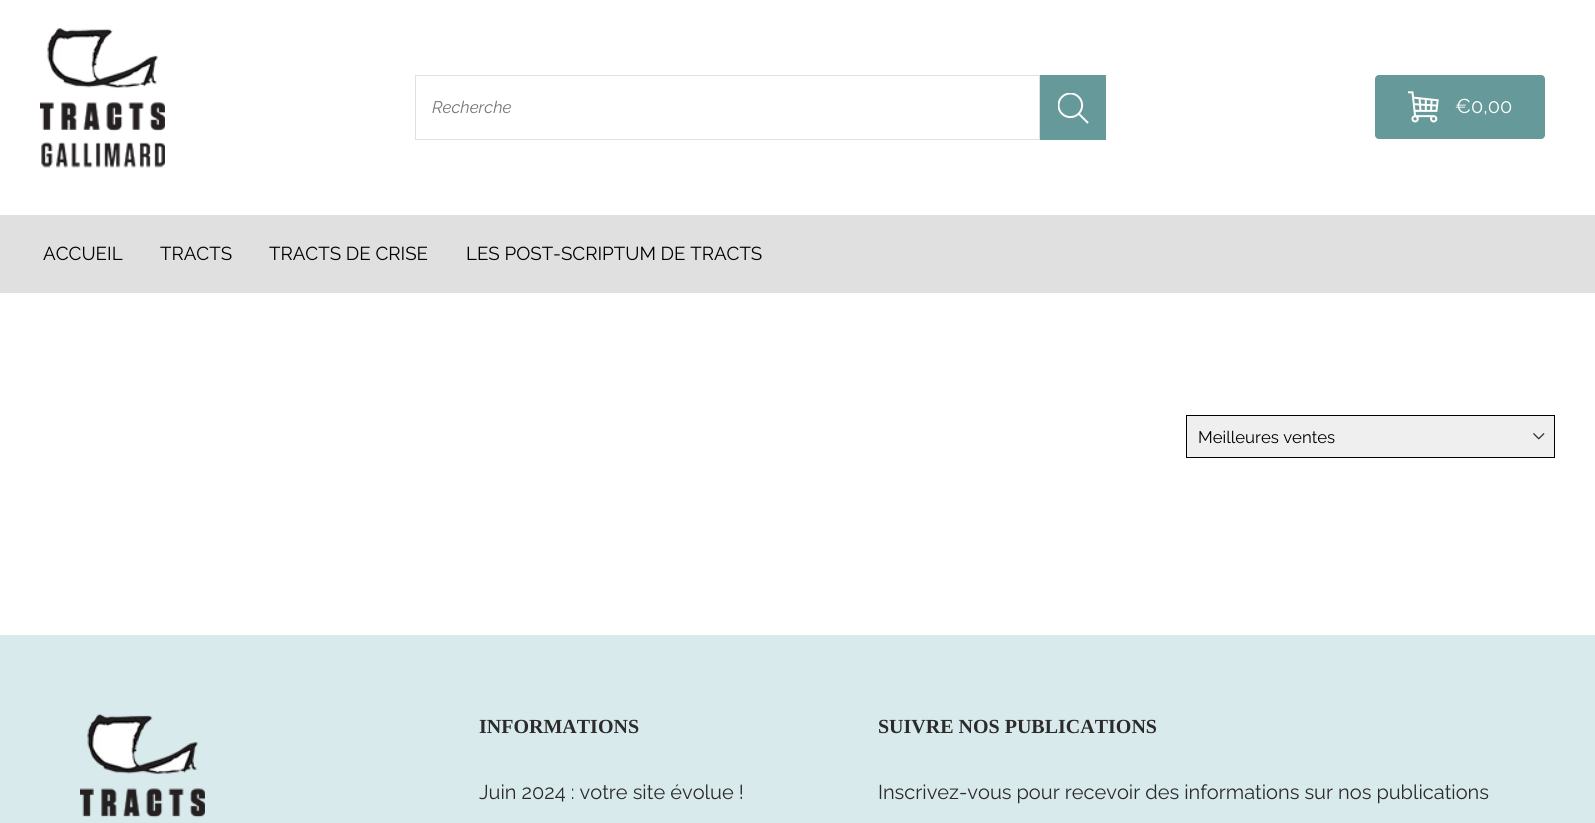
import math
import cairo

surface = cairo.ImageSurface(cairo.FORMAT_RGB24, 1595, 823)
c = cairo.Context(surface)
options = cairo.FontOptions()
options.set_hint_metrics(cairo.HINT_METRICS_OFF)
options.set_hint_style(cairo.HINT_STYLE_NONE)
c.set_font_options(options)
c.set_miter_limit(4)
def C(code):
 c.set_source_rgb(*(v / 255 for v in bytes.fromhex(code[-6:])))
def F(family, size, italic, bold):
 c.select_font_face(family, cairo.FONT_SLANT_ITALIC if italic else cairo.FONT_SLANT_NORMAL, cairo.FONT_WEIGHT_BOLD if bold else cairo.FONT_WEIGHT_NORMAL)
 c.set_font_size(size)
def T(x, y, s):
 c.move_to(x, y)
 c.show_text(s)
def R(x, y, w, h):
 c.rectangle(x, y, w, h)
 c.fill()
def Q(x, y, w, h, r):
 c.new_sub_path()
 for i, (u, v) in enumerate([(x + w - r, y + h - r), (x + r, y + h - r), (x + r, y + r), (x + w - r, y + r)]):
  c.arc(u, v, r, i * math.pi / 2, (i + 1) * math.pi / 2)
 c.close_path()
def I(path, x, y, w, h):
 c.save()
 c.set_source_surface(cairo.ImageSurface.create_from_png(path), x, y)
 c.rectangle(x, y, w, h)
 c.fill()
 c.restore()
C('ffffff')
c.paint()
I('1.png',40,28,125,140)
c.rectangle(415.5,75.5,624,64)
C('e0e0e0')
c.set_line_width(1)
c.stroke()
F('Raleway',16.75,1,0)
C('757575')
T(432,113,'Recherche')
C('669999')
R(1040,75,66,65)
I('2.png',1058,93,31,31)
Q(1375,75,170,64,4)
c.fill()
I('3.png',1408,91,31,32)
F('Raleway',20,0,0)
C('ffffff')
T(1455,113,'€0,00')
C('e0e0e0')
R(0,215,1595,78)
F('Raleway',18.75,0,0)
C('000000')
T(43,260,'ACCUEIL')
T(160,260,'TRACTS')
T(269,260,'TRACTS DE CRISE')
T(466,260,'LES POST-SCRIPTUM DE TRACTS')
C('efefef')
c.rectangle(1186.5,415.5,368,42)
c.fill_preserve()
C('000000')
c.stroke()
F('Raleway',16.75,0,0)
T(1198,443,'Meilleures ventes')
I('4.png',1533,433,12,7)
C('d8eaec')
R(0,635,1595,188)
I('5.png',80,714,125,104)
F('Liberation Serif',20,0,1)
C('2d2a2b')
T(479,733,'INFORMATIONS')
F('Raleway',20,0,0)
T(479,799,'Juin 2024 : votre site évolue !')
F('Liberation Serif',20,0,1)
T(878,733,'SUIVRE NOS PUBLICATIONS')
F('Raleway',20,0,0)
T(878,799,'Inscrivez-vous pour recevoir des informations sur nos publications')
surface.write_to_png('o.png')
